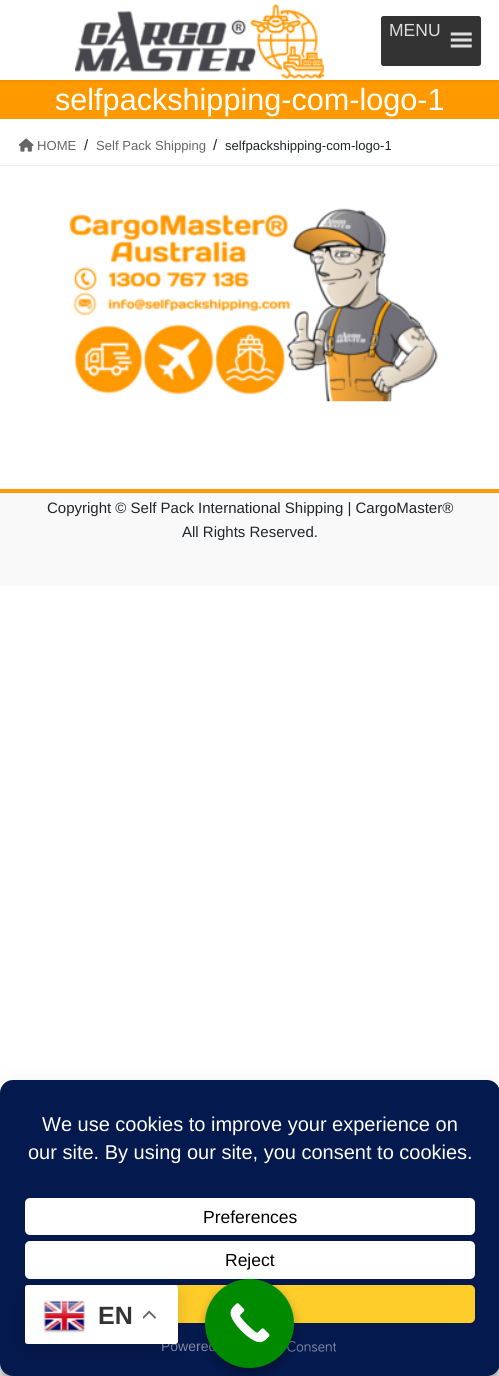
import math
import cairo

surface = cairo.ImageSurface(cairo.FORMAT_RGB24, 499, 1376)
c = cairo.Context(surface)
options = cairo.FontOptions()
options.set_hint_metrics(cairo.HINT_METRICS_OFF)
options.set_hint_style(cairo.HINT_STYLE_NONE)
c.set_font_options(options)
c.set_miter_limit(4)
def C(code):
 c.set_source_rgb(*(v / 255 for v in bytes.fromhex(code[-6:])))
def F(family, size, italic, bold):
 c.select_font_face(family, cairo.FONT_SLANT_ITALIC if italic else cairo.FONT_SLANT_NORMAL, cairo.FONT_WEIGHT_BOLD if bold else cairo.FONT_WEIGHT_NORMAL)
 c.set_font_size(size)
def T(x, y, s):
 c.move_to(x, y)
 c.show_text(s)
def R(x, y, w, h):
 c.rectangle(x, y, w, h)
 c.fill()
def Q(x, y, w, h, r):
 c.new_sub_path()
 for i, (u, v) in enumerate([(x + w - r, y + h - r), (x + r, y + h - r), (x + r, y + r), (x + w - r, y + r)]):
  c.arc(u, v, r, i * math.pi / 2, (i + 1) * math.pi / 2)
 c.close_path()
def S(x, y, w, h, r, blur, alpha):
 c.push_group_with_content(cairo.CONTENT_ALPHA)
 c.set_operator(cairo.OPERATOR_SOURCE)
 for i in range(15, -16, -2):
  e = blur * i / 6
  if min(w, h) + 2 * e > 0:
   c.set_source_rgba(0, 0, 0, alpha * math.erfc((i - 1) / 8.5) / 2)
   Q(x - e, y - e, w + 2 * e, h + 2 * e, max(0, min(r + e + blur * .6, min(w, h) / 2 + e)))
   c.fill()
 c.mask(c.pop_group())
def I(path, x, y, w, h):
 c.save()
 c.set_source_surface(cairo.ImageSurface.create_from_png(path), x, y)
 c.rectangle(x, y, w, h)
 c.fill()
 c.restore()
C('ffffff')
c.paint()
C('ff9900')
R(0,80,499,39)
c.save()
c.rectangle(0,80,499,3)
c.clip()
C('000000')
S(0,1,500,80,0,2,.1)
c.restore()
I('1.png',75,3,250,76)
C('333333')
Q(381,16,100,50,2.5)
c.fill()
F('Liberation Sans',17.5,0,0)
C('dddddd')
T(389,36,'MENU')
I('2.png',450,32,22,16)
F('Liberation Sans',30.6,0,0)
C('ffffff')
T(55,110,'selfpackshipping-com-logo-1')
C('f2f2f2')
R(0,165,499,1)
I('3.png',18,138,16,14)
F('Liberation Sans',13.1,0,0)
C('666666')
T(37,150,'HOME')
F('Liberation Sans',15,0,0)
C('212529')
T(84,150,'/')
F('Liberation Sans',13.1,0,0)
C('666666')
T(96,150,'Self Pack Shipping')
F('Liberation Sans',15,0,0)
C('212529')
T(213,150,'/')
F('Liberation Sans',13.1,0,0)
T(225,150,'selfpackshipping-com-logo-1')
I('4.png',68,208,370,194)
C('f9f9f9')
R(0,493,499,93)
C('ff9900')
R(0,489,499,4)
F('Liberation Sans',15,0,0)
C('212529')
T(47,513,'Copyright © Self Pack International Shipping | CargoMaster®')
T(182,537,'All Rights Reserved.')
C('000000')
S(0,1088,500,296,13,4,.23)
S(0,1093,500,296,13,12.5,.19)
C('04194e')
Q(0,1080,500,296,13)
c.fill()
F('Liberation Sans',20,0,0)
C('ffffff')
T(42,1131,'We use cookies to improve your experience on')
T(28,1159,'our site. By using our site, you consent to cookies.')
Q(25,1198,450,37,5)
c.fill()
F('Liberation Sans',17.5,0,0)
C('000000')
T(203,1223,'Preferences')
C('ffffff')
Q(25,1241,450,38,5)
c.fill()
C('000000')
T(225,1266,'Reject')
C('ffcd2a')
Q(25,1285,450,38,5)
c.fill()
F('Liberation Sans',14,0,0)
C('828ca7')
T(161,1351,'Powered')
I('5.png',287,1341,49,11)
C('000000')
S(25,1291,153,59,2.5,9.5,.15)
C('ffffff')
Q(25,1285,153,59,2.5)
c.fill()
I('6.png',43,1300,42,33)
F('Liberation Sans',25,0,1)
C('333333')
T(98,1324,'EN')
I('7.png',143,1310,13,9)
C('000000')
S(205,1284,89,89,44.5,5,.3)
C('008a00')
c.arc(249.5,1323.5,44.5,0,2 * math.pi)
c.fill()
I('8.png',230,1303,40,40)
surface.write_to_png('o.png')
